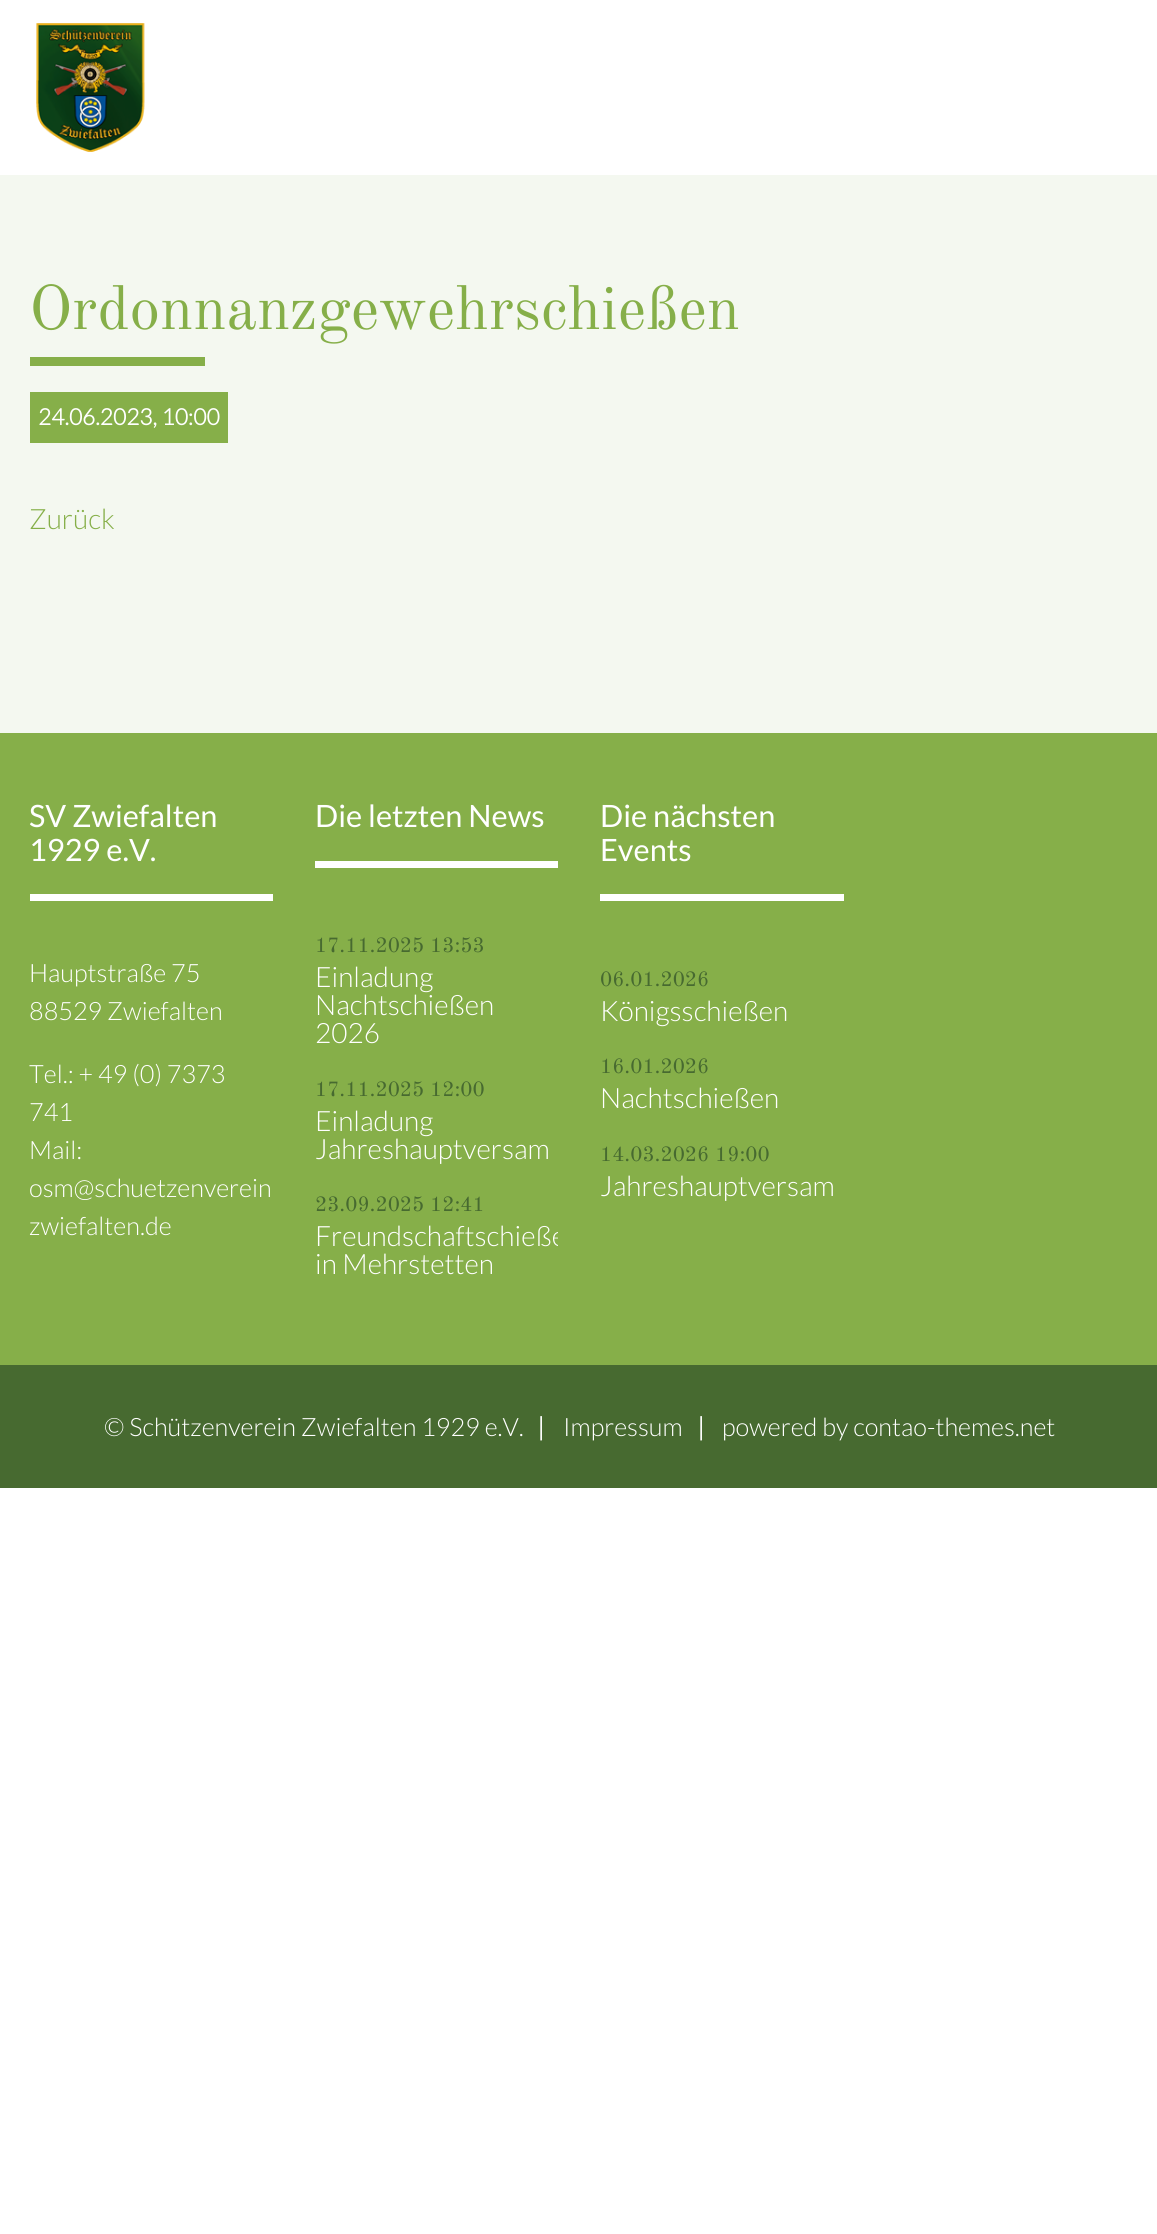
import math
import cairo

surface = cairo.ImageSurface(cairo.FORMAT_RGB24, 1157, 2234)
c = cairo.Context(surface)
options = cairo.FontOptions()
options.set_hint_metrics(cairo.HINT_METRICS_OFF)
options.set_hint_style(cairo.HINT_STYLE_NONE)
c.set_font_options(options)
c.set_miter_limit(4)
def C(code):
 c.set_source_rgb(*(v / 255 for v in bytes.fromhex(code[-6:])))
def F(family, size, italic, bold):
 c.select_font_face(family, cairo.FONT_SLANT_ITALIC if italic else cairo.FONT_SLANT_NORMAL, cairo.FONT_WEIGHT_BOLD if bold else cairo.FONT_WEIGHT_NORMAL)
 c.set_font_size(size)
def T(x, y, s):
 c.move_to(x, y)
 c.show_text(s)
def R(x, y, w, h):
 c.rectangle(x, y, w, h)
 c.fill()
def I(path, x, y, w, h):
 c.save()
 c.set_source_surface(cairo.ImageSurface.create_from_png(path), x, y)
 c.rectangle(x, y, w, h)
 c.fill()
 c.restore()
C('ffffff')
c.paint()
C('f4f8f0')
R(0,175,1157,558)
I('1.png',36,23,109,129)
F('Old Standard TT',61.6,0,0)
C('86af49')
T(29,329,'Ordonnanzgewehrschießen')
R(30,357,175,9)
R(30,392,198,51)
F('Lato',22.75,0,1)
C('ffffff')
T(38,425,'24.06.2023, 10:00')
F('Lato Light',28,0,0)
C('86af49')
T(29,529,'Zurück')
R(0,733,1157,632)
F('Lato',30.75,0,0)
C('ffffff')
T(29,827,'SV Zwiefalten')
T(29,861,'1929 e.V.')
R(30,894,243,7)
F('Lato Light',25.25,0,0)
T(29,982,'Hauptstraße 75')
T(29,1020,'88529 Zwiefalten')
T(29,1083,'Tel.: + 49 (0) 7373')
T(29,1121,'741')
T(29,1159,'Mail:')
T(29,1197,'osm@schuetzenverein')
T(29,1235,'zwiefalten.de')
F('Lato',30.75,0,0)
T(315,827,'Die letzten News')
R(315,861,243,7)
F('Old Standard TT',21,0,0)
C('476a30')
T(315,952,'17.11.2025 13:53')
F('Lato Light',28,0,0)
C('ffffff')
T(315,987,'Einladung')
T(315,1015,'Nachtschießen')
T(315,1043,'2026')
F('Old Standard TT',21,0,0)
C('476a30')
T(315,1096,'17.11.2025 12:00')
F('Lato Light',28,0,0)
C('ffffff')
T(315,1131,'Einladung')
T(315,1159,'Jahreshauptversam')
F('Old Standard TT',21,0,0)
C('476a30')
T(315,1211,'23.09.2025 12:41')
c.save()
c.rectangle(315,1180,243,115)
c.clip()
F('Lato Light',28,0,0)
C('ffffff')
T(315,1246,'Freundschaftschieße')
c.restore()
F('Lato Light',28,0,0)
C('ffffff')
T(315,1274,'in Mehrstetten')
F('Lato',30.75,0,0)
T(600,827,'Die nächsten')
T(600,861,'Events')
R(600,894,244,7)
F('Old Standard TT',21,0,0)
C('476a30')
T(600,986,'06.01.2026')
F('Lato Light',28,0,0)
C('ffffff')
T(600,1021,'Königsschießen')
F('Old Standard TT',21,0,0)
C('476a30')
T(600,1073,'16.01.2026')
F('Lato Light',28,0,0)
C('ffffff')
T(600,1108,'Nachtschießen')
F('Old Standard TT',21,0,0)
C('476a30')
T(600,1161,'14.03.2026 19:00')
F('Lato Light',28,0,0)
C('ffffff')
T(600,1196,'Jahreshauptversam')
C('476a30')
R(0,1365,1157,123)
F('Lato Light',25.25,0,0)
C('ffffff')
T(104,1436,'© Schützenverein Zwiefalten 1929 e.V.')
F('Lato',25.25,0,1)
T(537,1436,'|')
F('Lato Light',25.25,0,0)
T(563,1436,'Impressum')
F('Lato',25.25,0,1)
T(697,1436,'|')
F('Lato Light',25.25,0,0)
T(722,1436,'powered by contao-themes.net')
surface.write_to_png('o.png')
